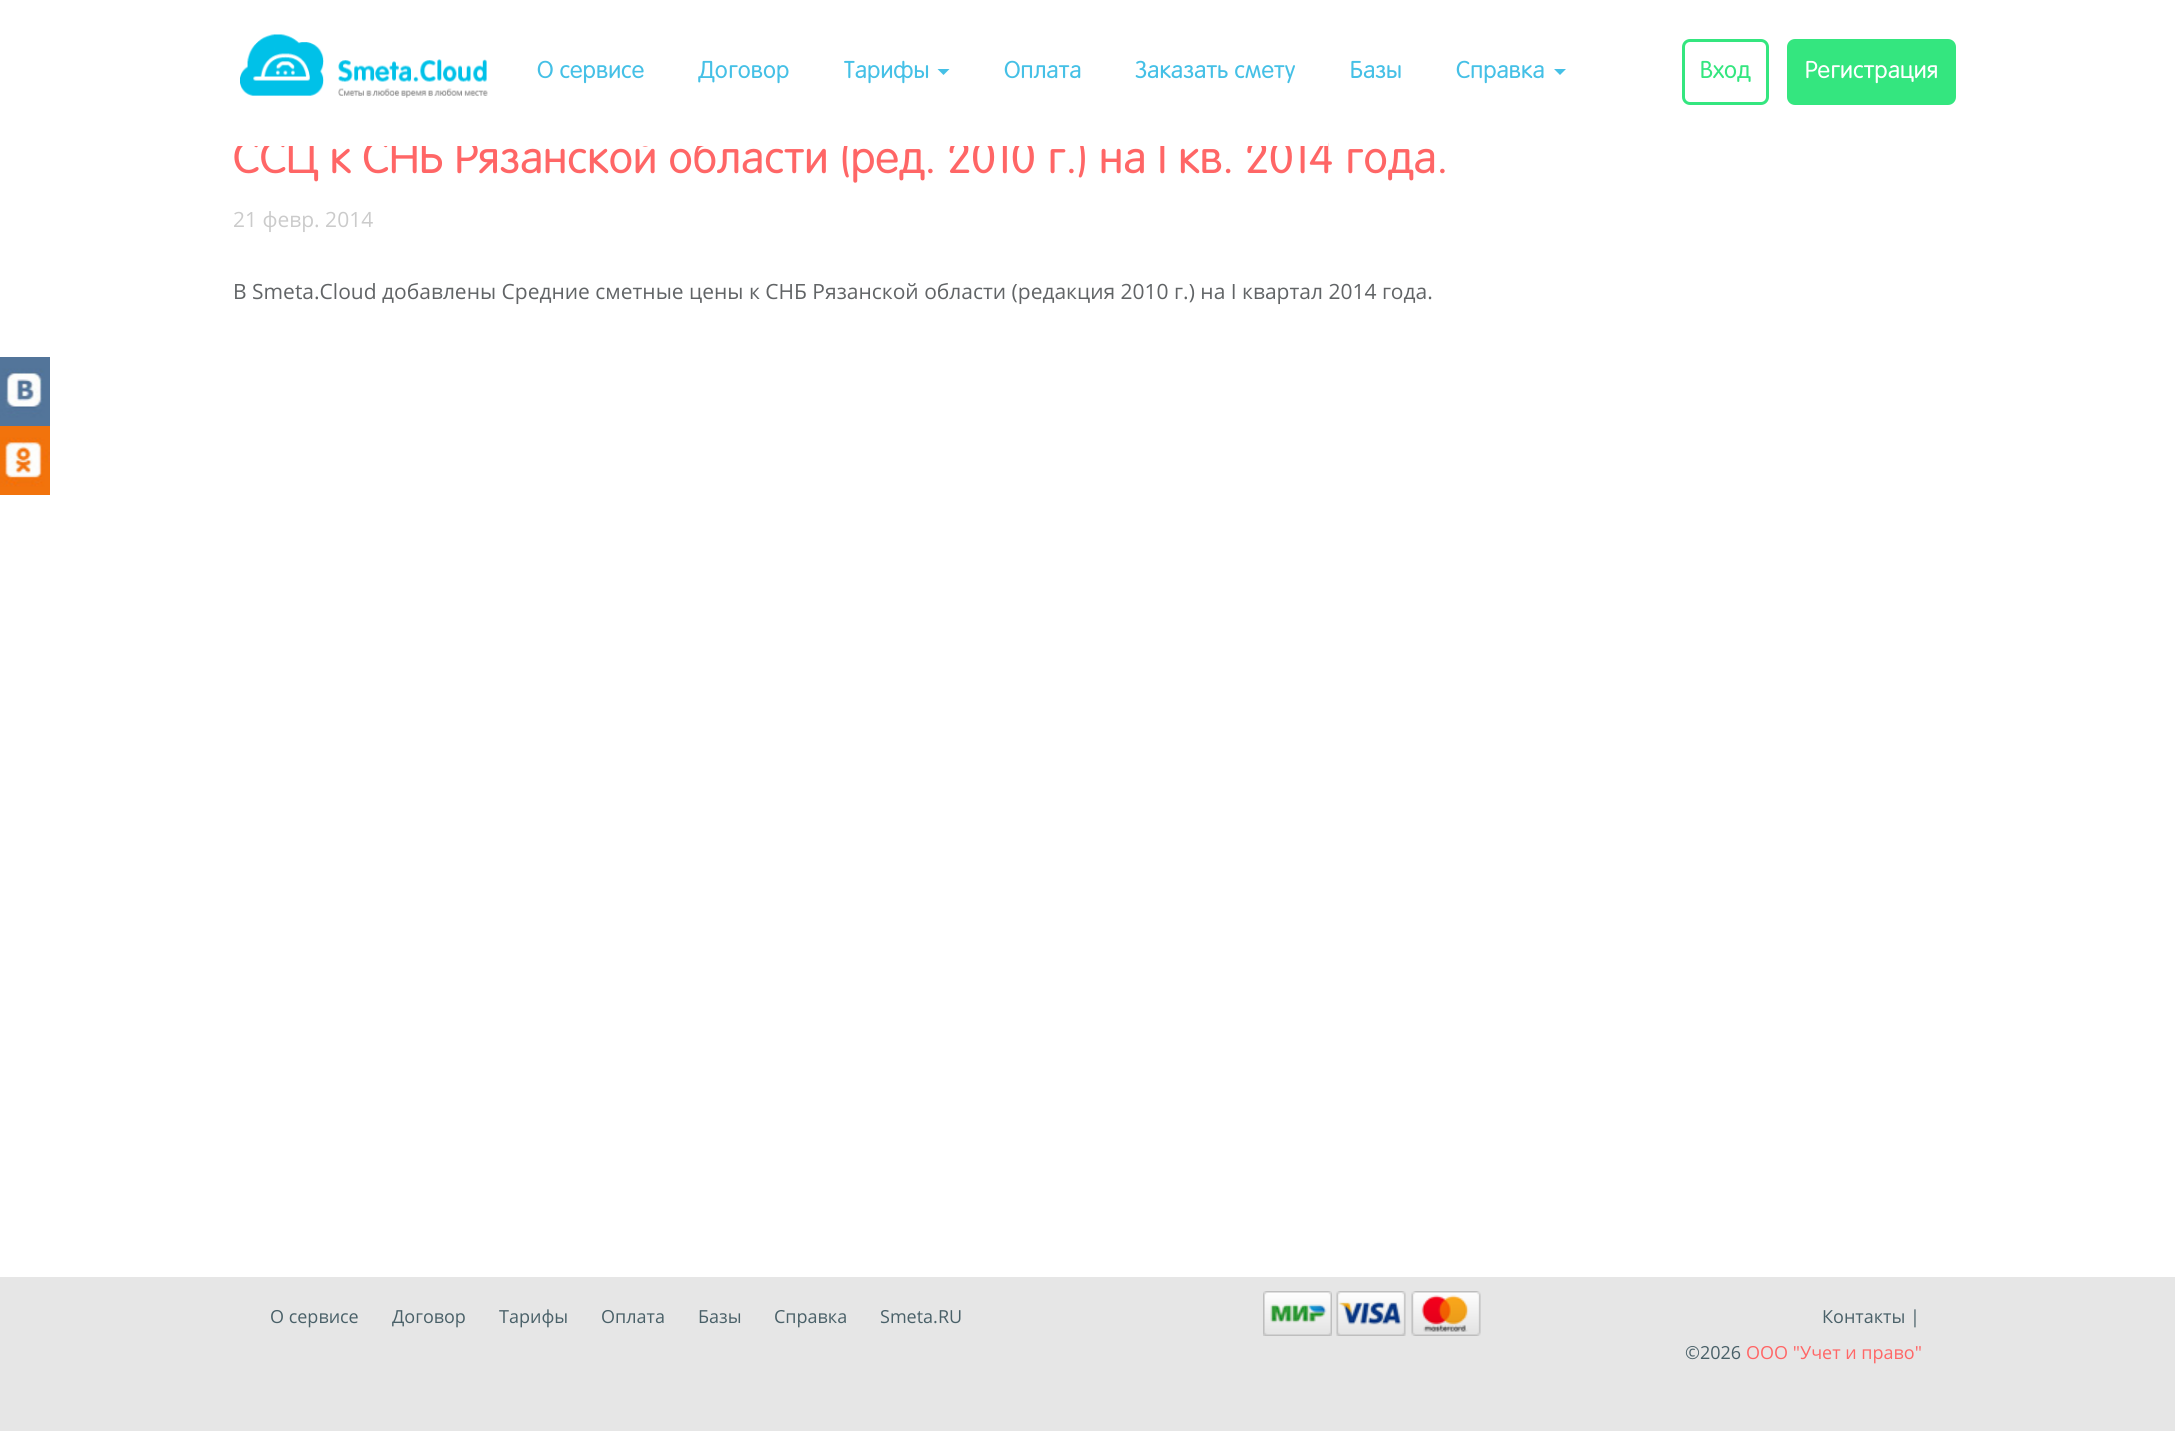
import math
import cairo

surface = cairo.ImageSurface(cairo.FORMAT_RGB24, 2175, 1431)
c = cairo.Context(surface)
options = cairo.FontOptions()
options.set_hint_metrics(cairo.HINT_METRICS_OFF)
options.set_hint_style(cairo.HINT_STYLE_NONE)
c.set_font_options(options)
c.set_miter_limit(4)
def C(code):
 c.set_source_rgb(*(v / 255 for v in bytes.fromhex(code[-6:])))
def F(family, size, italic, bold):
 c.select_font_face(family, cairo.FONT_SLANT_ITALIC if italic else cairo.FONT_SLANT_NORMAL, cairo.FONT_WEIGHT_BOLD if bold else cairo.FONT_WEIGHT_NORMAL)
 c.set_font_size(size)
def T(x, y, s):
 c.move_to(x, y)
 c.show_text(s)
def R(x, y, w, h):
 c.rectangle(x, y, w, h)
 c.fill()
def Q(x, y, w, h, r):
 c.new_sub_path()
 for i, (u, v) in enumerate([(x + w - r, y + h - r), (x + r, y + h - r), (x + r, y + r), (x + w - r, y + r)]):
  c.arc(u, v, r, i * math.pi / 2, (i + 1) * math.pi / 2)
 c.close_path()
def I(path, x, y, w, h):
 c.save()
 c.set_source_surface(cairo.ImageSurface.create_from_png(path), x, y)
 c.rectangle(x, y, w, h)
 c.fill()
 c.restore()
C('ffffff')
c.paint()
F('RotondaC',45,0,0)
C('ff6666')
T(233,173,'ССЦ к СНБ Рязанской области (ред. 2010 г.) на I кв. 2014 года.')
C('ffffff')
R(237,139,1091,7)
I('1.png',240,34,248,64)
F('RotondaC',24,0,0)
C('45c0e6')
T(537,78,'О сервисе')
T(698,78,'Договор')
T(844,78,'Тарифы')
c.new_path()
c.move_to(937.5,69)
c.line_to(949.5,69)
c.line_to(943.5,75)
c.close_path()
c.fill()
T(1004,78,'Оплата')
T(1135,78,'Заказать смету')
T(1350,78,'Базы')
T(1456,78,'Справка')
c.new_path()
c.move_to(1554,69)
c.line_to(1566,69)
c.line_to(1560,75)
c.close_path()
c.fill()
Q(1683.5,40.5,84,63,6.5)
C('34e67f')
c.set_line_width(3)
c.stroke()
T(1700,78,'Вход')
Q(1788.5,40.5,166,63,6.5)
c.fill_preserve()
c.stroke()
C('ffffff')
T(1805,78,'Регистрация')
F('Open Sans',21,0,0)
C('cbcbcb')
T(233,227,'21 февр. 2014')
C('616466')
T(233,299,'В Smeta.Cloud добавлены Средние сметные цены к СНБ Рязанской области (редакция 2010 г.) на I квартал 2014 года.')
I('2.png',0,357,50,69)
I('3.png',0,426,50,69)
C('e6e6e6')
R(0,1277,2175,154)
F('Open Sans',18,0,0)
C('496068')
T(270,1323,'О сервисе')
T(392,1323,'Договор')
T(499,1323,'Тарифы')
T(601,1323,'Оплата')
T(698,1323,'Базы')
T(774,1323,'Справка')
T(880,1323,'Smeta.RU')
I('4.png',1263,1291,69,45)
I('5.png',1336,1291,70,45)
I('6.png',1411,1291,70,45)
T(1822,1323,'Контакты |')
T(1685,1359,'©2026')
C('ff6666')
T(1746,1359,'ООО "Учет и право"')
surface.write_to_png('o.png')
